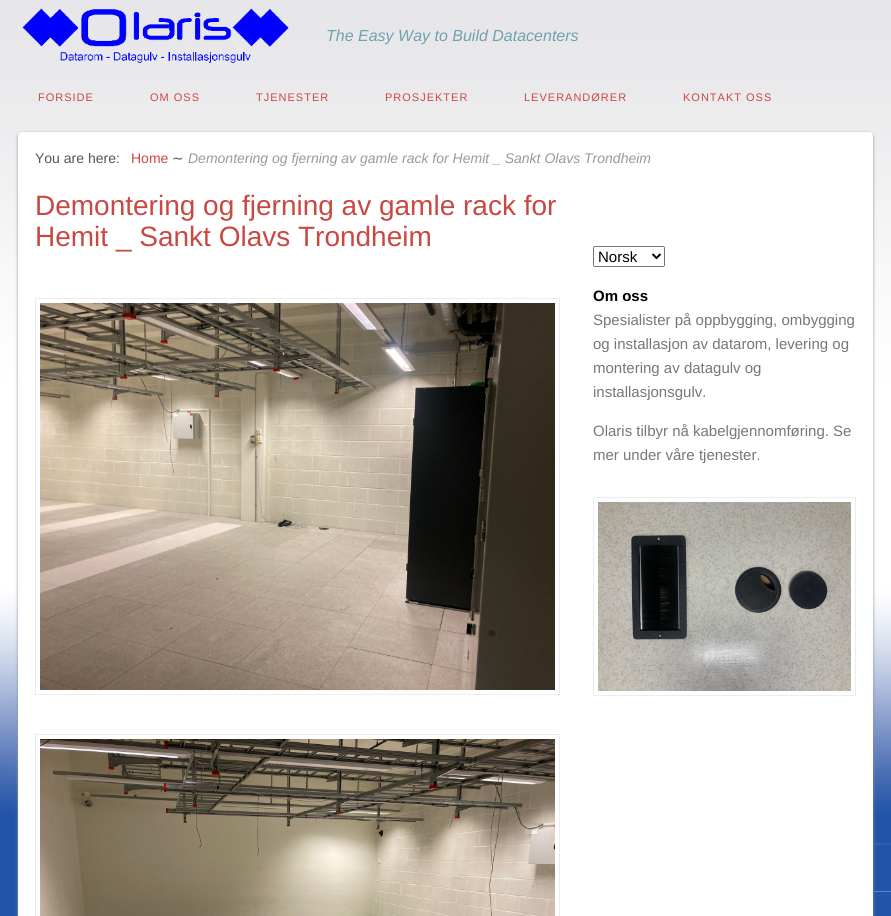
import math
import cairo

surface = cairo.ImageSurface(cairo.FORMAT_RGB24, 891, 916)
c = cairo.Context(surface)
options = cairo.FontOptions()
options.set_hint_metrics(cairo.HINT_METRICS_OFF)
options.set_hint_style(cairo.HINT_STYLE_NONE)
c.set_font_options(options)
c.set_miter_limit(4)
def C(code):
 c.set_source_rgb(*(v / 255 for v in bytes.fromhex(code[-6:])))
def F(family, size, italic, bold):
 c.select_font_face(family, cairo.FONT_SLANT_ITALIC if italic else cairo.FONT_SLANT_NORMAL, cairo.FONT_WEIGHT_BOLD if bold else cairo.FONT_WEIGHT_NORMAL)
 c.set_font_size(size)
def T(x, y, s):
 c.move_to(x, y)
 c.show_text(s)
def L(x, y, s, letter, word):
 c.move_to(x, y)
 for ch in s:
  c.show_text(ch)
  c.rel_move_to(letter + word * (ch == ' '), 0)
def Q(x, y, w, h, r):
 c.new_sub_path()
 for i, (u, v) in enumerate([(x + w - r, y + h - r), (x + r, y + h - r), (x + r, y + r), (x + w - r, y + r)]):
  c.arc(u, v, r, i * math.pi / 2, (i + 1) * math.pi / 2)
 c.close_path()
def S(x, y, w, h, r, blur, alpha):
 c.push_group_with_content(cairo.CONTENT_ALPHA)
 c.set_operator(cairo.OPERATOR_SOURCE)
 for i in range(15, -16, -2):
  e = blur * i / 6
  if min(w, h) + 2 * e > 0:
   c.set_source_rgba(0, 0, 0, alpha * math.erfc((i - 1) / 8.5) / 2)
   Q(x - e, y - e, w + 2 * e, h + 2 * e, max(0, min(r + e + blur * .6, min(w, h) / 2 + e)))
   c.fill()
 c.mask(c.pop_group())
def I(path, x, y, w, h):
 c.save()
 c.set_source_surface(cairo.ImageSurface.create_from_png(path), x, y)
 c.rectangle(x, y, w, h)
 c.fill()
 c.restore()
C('ffffff')
c.paint()
I('1.png',0,0,891,916)
I('2.png',22,8,267,55)
F('Liberation Sans',16,1,0)
C('70a0b2')
T(326,41,'The Easy Way to Build Datacenters')
F('Liberation Sans',11,0,0)
C('ca4842')
L(38,101,'FORSIDE',1,0)
L(150,101,'OM OSS',1,0)
L(256,101,'TJENESTER',1,0)
L(385,101,'PROSJEKTER',1,0)
L(524,101,'LEVERANDØRER',1,0)
L(683,101,'KONTAKT OSS',1,0)
I('6.png',873,843,18,49)
C('8493a6')
S(18,133,855,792,4,1.5,1)
C('ffffff')
Q(18,132,855,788,4)
c.fill()
F('Liberation Sans',14,0,0)
C('555555')
T(35,163,'You are here:')
C('ca4842')
T(131,163,'Home')
F('DejaVu Sans',14,0,0)
C('555555')
T(172,163,'∼')
F('Liberation Sans',14,1,0)
C('999999')
T(188,163,'Demontering og fjerning av gamle rack for Hemit _ Sankt Olavs Trondheim')
F('Liberation Sans',28,0,0)
C('ca4842')
T(35,215,'Demontering og fjerning av gamle rack for')
T(35,246,'Hemit _ Sankt Olavs Trondheim')
c.rectangle(35.5,298.5,524,396)
C('e9edf1')
c.set_line_width(1)
c.stroke()
I('3.png',40,303,515,387)
c.rectangle(35.5,734.5,524,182)
c.stroke()
I('4.png',40,739,515,177)
Q(593.5,246.5,71,20,1.5)
C('767676')
c.stroke()
c.new_path()
c.move_to(652.5,254)
c.line_to(656.5,258)
c.line_to(660.5,254)
C('000000')
c.set_line_width(2)
c.stroke()
F('Liberation Sans',15,0,0)
T(598,262,'Norsk')
F('Liberation Sans',15,0,1)
T(593,301,'Om oss')
F('Liberation Sans',15,0,0)
C('777777')
T(593,325,'Spesialister på oppbygging, ombygging')
T(593,349,'og installasjon av datarom, levering og')
T(593,373,'montering av datagulv og')
T(593,397,'installasjonsgulv.')
T(593,436,'Olaris tilbyr nå kabelgjennomføring. Se')
T(593,460,'mer under våre tjenester.')
c.rectangle(593.5,497.5,262,198)
C('e9edf1')
c.set_line_width(1)
c.stroke()
I('5.png',598,502,253,189)
surface.write_to_png('o.png')
